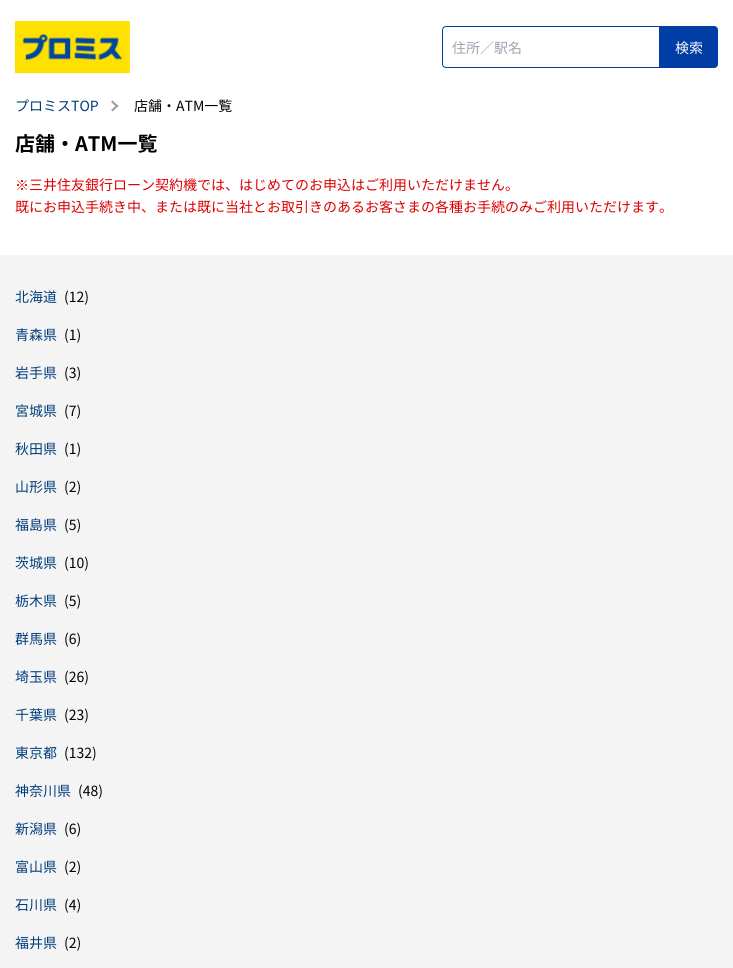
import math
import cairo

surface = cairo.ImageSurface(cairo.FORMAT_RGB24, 733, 968)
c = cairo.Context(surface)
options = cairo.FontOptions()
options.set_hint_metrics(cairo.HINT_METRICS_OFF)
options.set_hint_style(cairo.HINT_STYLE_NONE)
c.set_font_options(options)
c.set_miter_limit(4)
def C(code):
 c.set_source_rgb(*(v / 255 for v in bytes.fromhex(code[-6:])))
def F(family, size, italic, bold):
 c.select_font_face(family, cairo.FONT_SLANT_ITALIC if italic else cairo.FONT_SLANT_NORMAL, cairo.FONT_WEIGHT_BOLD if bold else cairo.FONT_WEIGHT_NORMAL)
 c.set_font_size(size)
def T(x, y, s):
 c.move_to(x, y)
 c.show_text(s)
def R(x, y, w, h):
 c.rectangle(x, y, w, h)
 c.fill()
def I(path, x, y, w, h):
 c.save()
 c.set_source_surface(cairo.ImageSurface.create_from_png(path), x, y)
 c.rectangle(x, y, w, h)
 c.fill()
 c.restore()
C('ffffff')
c.paint()
I('1.png',15,21,115,52)
c.new_path()
c.move_to(446,26.5)
c.line_to(659.5,26.5)
c.line_to(659.5,67.5)
c.line_to(446,67.5)
c.curve_to(444,67.5,442.5,66,442.5,64)
c.line_to(442.5,30)
c.curve_to(442.5,28,444,26.5,446,26.5)
c.close_path()
C('003da5')
c.set_line_width(1)
c.stroke()
F('Noto Sans JP',14,0,0)
C('9ca3af')
T(452,53,'住所／駅名')
C('003da5')
c.new_path()
c.move_to(660.5,26.5)
c.line_to(714,26.5)
c.curve_to(716,26.5,717.5,28,717.5,30)
c.line_to(717.5,64)
c.curve_to(717.5,66,716,67.5,714,67.5)
c.line_to(660.5,67.5)
c.close_path()
c.fill_preserve()
c.stroke()
C('ffffff')
T(675,53,'検索')
C('003d7b')
T(15,111,'プロミスTOP')
C('a49f9a')
c.new_path()
c.move_to(111,102)
c.line_to(112.5,100.5)
c.line_to(118.5,106)
c.line_to(117,107.5)
c.close_path()
c.fill()
c.new_path()
c.move_to(111,110)
c.line_to(117,104.5)
c.line_to(118.5,106)
c.line_to(112.5,111.5)
c.close_path()
c.fill()
C('000000')
T(134,111,'店舗・ATM一覧')
F('Noto Sans JP',20,0,1)
T(15,151,'店舗・ATM一覧')
F('WenQuanYi Zen Hei Medium',14,0,0)
C('dc0000')
T(15,190,'※')
F('Noto Sans JP',14,0,0)
T(29,190,'三井住友銀行ローン契約機では、はじめてのお申込はご利用いただけません。')
T(15,212,'既にお申込手続き中、または既に当社とお取引きのあるお客さまの各種お手続のみご利用いただけます。')
C('f4f4f4')
R(0,255,733,713)
C('003d7b')
T(15,302,'北海道')
C('000000')
T(64,302,'(12)')
C('003d7b')
T(15,340,'青森県')
C('000000')
T(64,340,'(1)')
C('003d7b')
T(15,378,'岩手県')
C('000000')
T(64,378,'(3)')
C('003d7b')
T(15,416,'宮城県')
C('000000')
T(64,416,'(7)')
C('003d7b')
T(15,454,'秋田県')
C('000000')
T(64,454,'(1)')
C('003d7b')
T(15,492,'山形県')
C('000000')
T(64,492,'(2)')
C('003d7b')
T(15,530,'福島県')
C('000000')
T(64,530,'(5)')
C('003d7b')
T(15,568,'茨城県')
C('000000')
T(64,568,'(10)')
C('003d7b')
T(15,606,'栃木県')
C('000000')
T(64,606,'(5)')
C('003d7b')
T(15,644,'群馬県')
C('000000')
T(64,644,'(6)')
C('003d7b')
T(15,682,'埼玉県')
C('000000')
T(64,682,'(26)')
C('003d7b')
T(15,720,'千葉県')
C('000000')
T(64,720,'(23)')
C('003d7b')
T(15,758,'東京都')
C('000000')
T(64,758,'(132)')
C('003d7b')
T(15,796,'神奈川県')
C('000000')
T(78,796,'(48)')
C('003d7b')
T(15,834,'新潟県')
C('000000')
T(64,834,'(6)')
C('003d7b')
T(15,872,'富山県')
C('000000')
T(64,872,'(2)')
C('003d7b')
T(15,910,'石川県')
C('000000')
T(64,910,'(4)')
C('003d7b')
T(15,948,'福井県')
C('000000')
T(64,948,'(2)')
surface.write_to_png('o.png')
